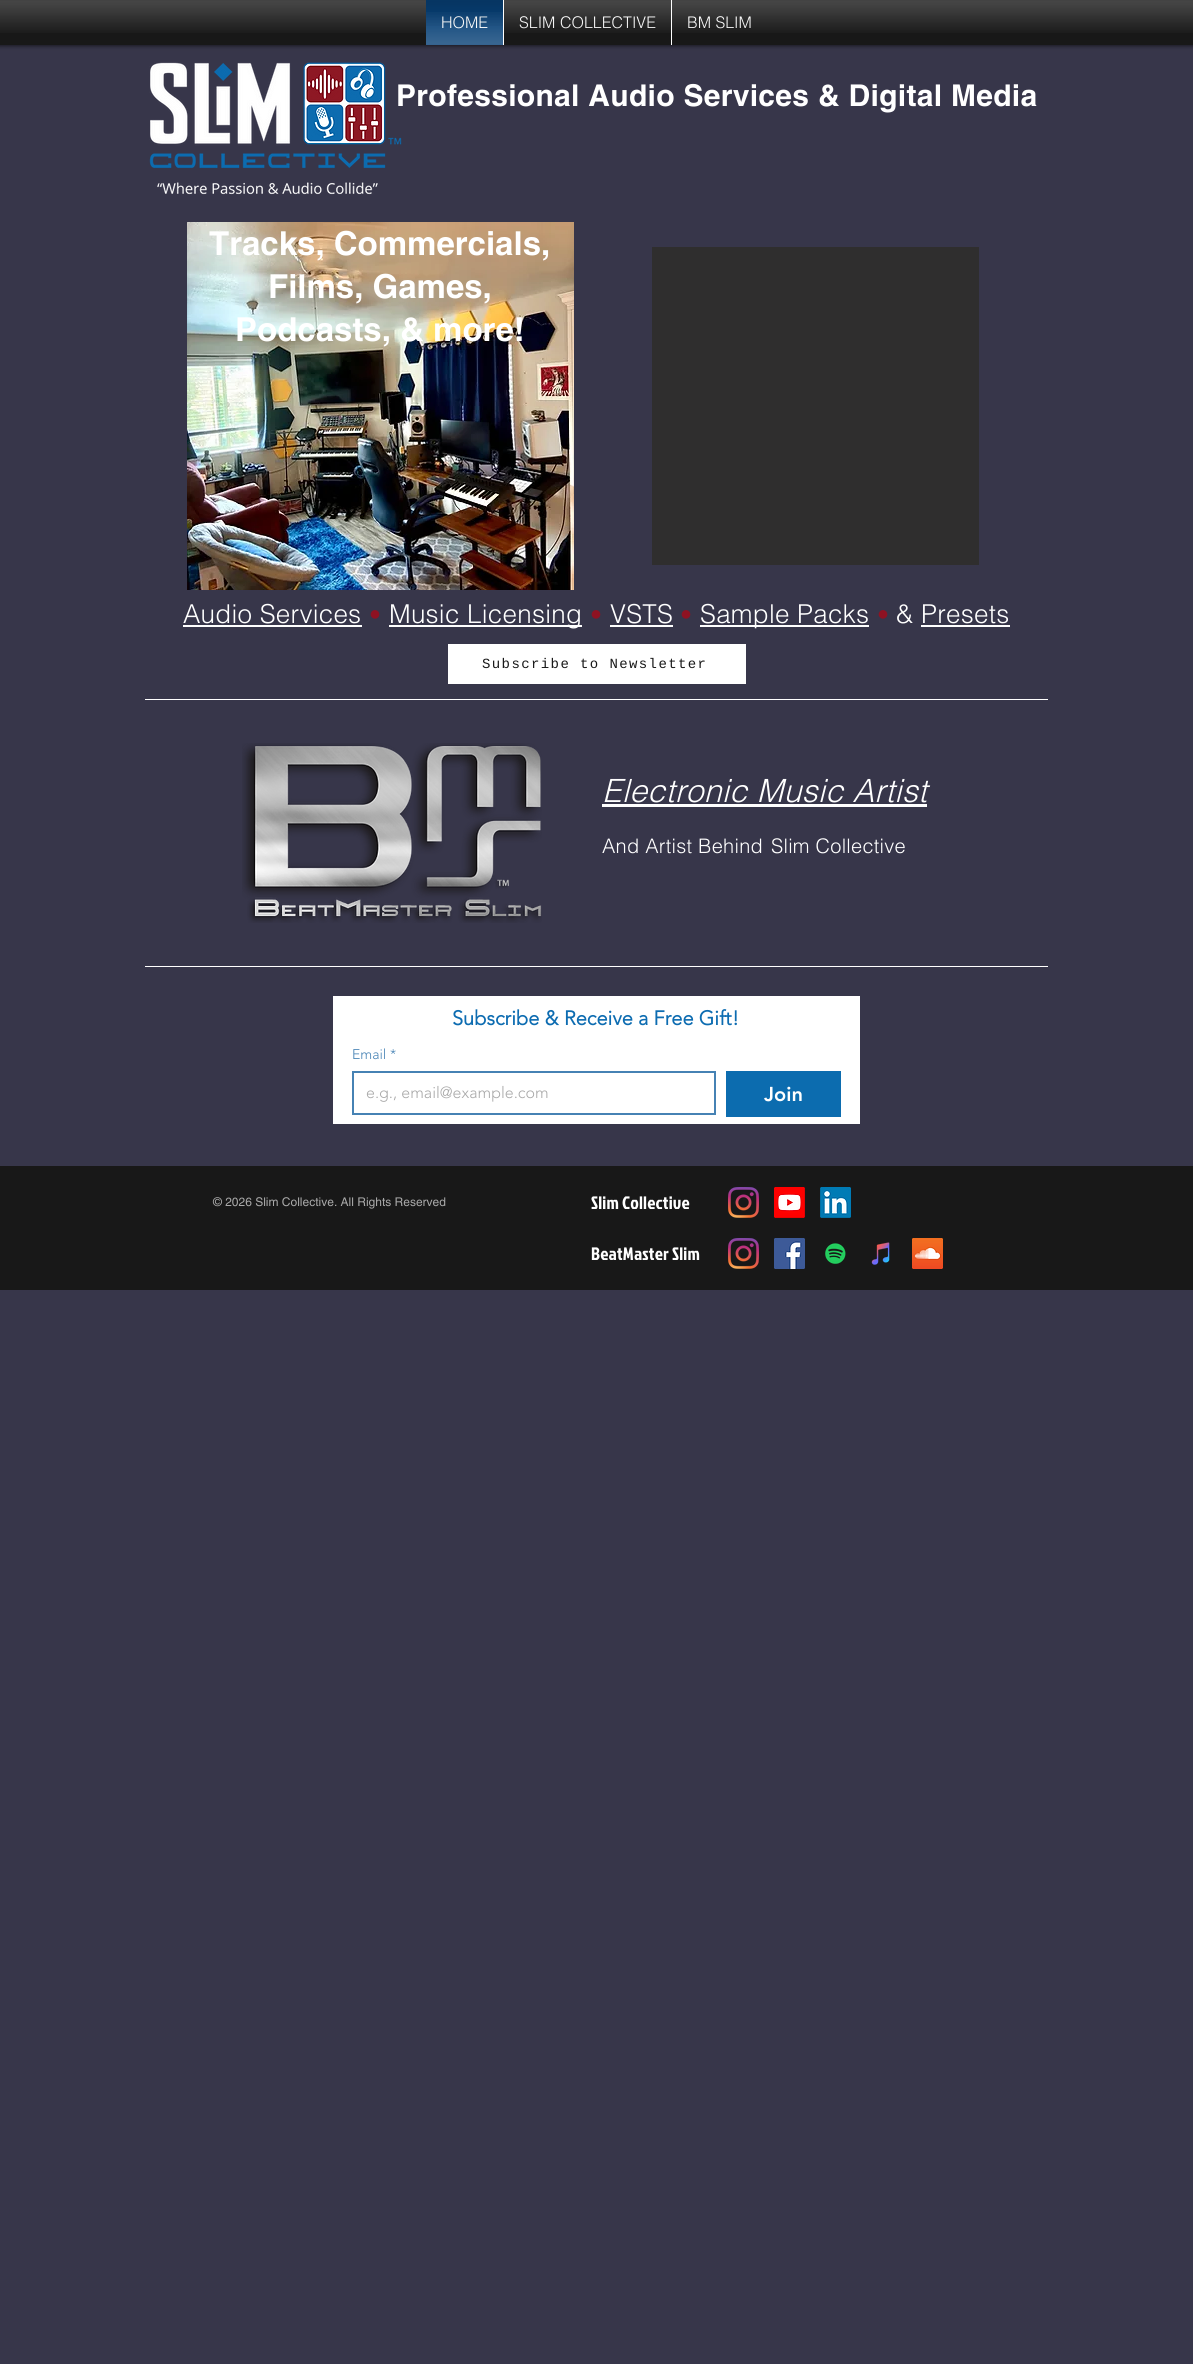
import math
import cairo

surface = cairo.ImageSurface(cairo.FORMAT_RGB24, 1193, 2364)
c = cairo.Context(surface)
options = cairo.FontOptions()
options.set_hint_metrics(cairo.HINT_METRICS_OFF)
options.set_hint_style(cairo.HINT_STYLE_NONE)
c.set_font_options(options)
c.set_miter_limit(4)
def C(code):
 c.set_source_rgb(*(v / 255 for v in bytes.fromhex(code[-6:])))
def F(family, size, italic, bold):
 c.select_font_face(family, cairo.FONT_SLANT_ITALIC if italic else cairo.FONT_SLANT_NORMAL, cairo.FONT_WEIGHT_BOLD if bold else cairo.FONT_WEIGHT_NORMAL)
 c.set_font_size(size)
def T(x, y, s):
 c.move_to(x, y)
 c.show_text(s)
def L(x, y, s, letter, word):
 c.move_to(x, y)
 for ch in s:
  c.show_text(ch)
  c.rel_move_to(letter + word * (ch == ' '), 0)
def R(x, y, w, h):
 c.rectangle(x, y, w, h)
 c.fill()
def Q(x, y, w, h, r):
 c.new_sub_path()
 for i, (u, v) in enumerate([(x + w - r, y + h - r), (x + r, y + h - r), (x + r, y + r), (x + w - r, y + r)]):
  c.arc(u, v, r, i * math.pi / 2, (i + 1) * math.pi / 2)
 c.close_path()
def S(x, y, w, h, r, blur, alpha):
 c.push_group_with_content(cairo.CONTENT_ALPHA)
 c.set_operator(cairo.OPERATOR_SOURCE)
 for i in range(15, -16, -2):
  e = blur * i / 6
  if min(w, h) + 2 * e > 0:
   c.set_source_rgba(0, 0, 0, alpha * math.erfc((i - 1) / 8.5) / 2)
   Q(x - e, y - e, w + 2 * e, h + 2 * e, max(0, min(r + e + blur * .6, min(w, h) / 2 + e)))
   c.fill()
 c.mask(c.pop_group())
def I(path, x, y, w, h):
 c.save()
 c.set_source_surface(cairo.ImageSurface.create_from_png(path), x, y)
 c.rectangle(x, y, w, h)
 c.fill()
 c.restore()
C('37364a')
c.paint()
C('000000')
S(-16,1,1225,45,10,2,.6)
C('181818')
R(0,0,1193,45)
I('1.png',0,0,1193,33)
C('074076')
R(426,0,77,45)
F('helvetica Light',16,0,0)
C('ffffff')
T(441,28,'HOME')
I('2.png',426,0,77,26)
I('3.png',426,12,77,33)
C('181818')
R(504,0,167,33)
C('ffffff')
R(503,0,1,45)
T(519,28,'SLIM COLLECTIVE')
I('4.png',504,0,167,33)
I('5.png',519,19,137,10)
C('181818')
R(672,0,95,33)
C('ffffff')
R(671,0,1,45)
T(687,28,'BM SLIM')
I('6.png',672,0,95,33)
I('7.png',688,19,63,10)
F('helvetica',30,0,1)
L(396,106,'Professional Audio Services & Digital Media',.3,0)
I('8.png',149,62,253,133)
I('9.png',187,222,387,368)
F('helvetica',33,0,1)
T(209,255,'Tracks, Commercials,')
T(268,298,'Films, Games,')
T(235,341,'Podcasts, & more!')
C('2f2e2e')
R(652,247,327,318)
F('helvetica Light',26,0,0)
C('ffffff')
L(183,623,'Audio Services',.25,0)
R(183,625,179,2)
F('helvetica Light',24,0,0)
C('8e1222')
T(369,623,'•')
C('ffffff')
R(389,625,193,2)
F('helvetica Light',26,0,0)
L(389,623,'Music Licensing',.25,0)
F('helvetica Light',24,0,0)
C('8e1222')
T(590,623,'•')
F('helvetica Light',26,0,0)
C('ffffff')
L(610,623,'VSTS',.25,0)
R(610,625,63,2)
F('helvetica Light',24,0,0)
C('8e1222')
T(680,623,'•')
C('ffffff')
R(700,625,169,2)
F('helvetica Light',26,0,0)
L(700,623,'Sample Packs',.25,0)
F('helvetica Light',24,0,0)
C('8e1222')
T(877,623,'•')
F('helvetica Light',26,0,0)
C('ffffff')
L(896,623,'& Presets',.25,0)
R(921,625,89,2)
R(448,644,298,40)
F('Liberation Mono',14,0,0)
C('181818')
L(482,668,'Subscribe to Newsletter',1.4,0)
C('ffffff')
R(145,699,903,1)
I('10.png',242,743,300,180)
F('helvetica Light',32,1,0)
L(602,802,'Electronic Music Artist',.3,0)
R(602,804,325,3)
F('helvetica Light',20,0,0)
L(602,853,'And Artist Behind',.25,0)
L(771,853,'Slim Collective',.25,0)
R(145,966,903,1)
R(333,996,527,128)
F('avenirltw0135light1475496',20,0,1)
C('0d6cb1')
T(452,1025,'Subscribe & Receive a Free Gift!')
F('avenirltw0135light1475496 Light',14,0,0)
C('4682b4')
T(352,1059,'Email')
T(390,1059,'*')
c.rectangle(353,1072,362,42)
c.stroke()
F('avenirltw0135light1475496 Light',16,0,0)
C('a9a9a9')
T(366,1098,'e.g., email@example.com')
C('0c6caf')
R(726,1071,115,46)
F('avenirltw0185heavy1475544 Black',20,0,0)
C('ffffff')
T(764,1101,'Join')
C('181818')
R(0,1166,1193,124)
F('helvetica',12,0,0)
C('a9a9a9')
T(213,1206,'© 2026 Slim Collective. All Rights Reserved')
F('Jockey One',18,0,0)
C('ffffff')
L(591,1209,'Slim Collective',.2,0)
I('11.png',728,1187,31,31)
I('12.png',774,1187,31,31)
I('13.png',820,1187,31,31)
L(591,1260,'BeatMaster Slim',.2,0)
I('11.png',728,1238,31,31)
I('14.png',774,1238,31,31)
I('15.png',825,1243,21,21)
I('16.png',871,1242,19,23)
I('17.png',912,1238,31,31)
surface.write_to_png('o.png')
